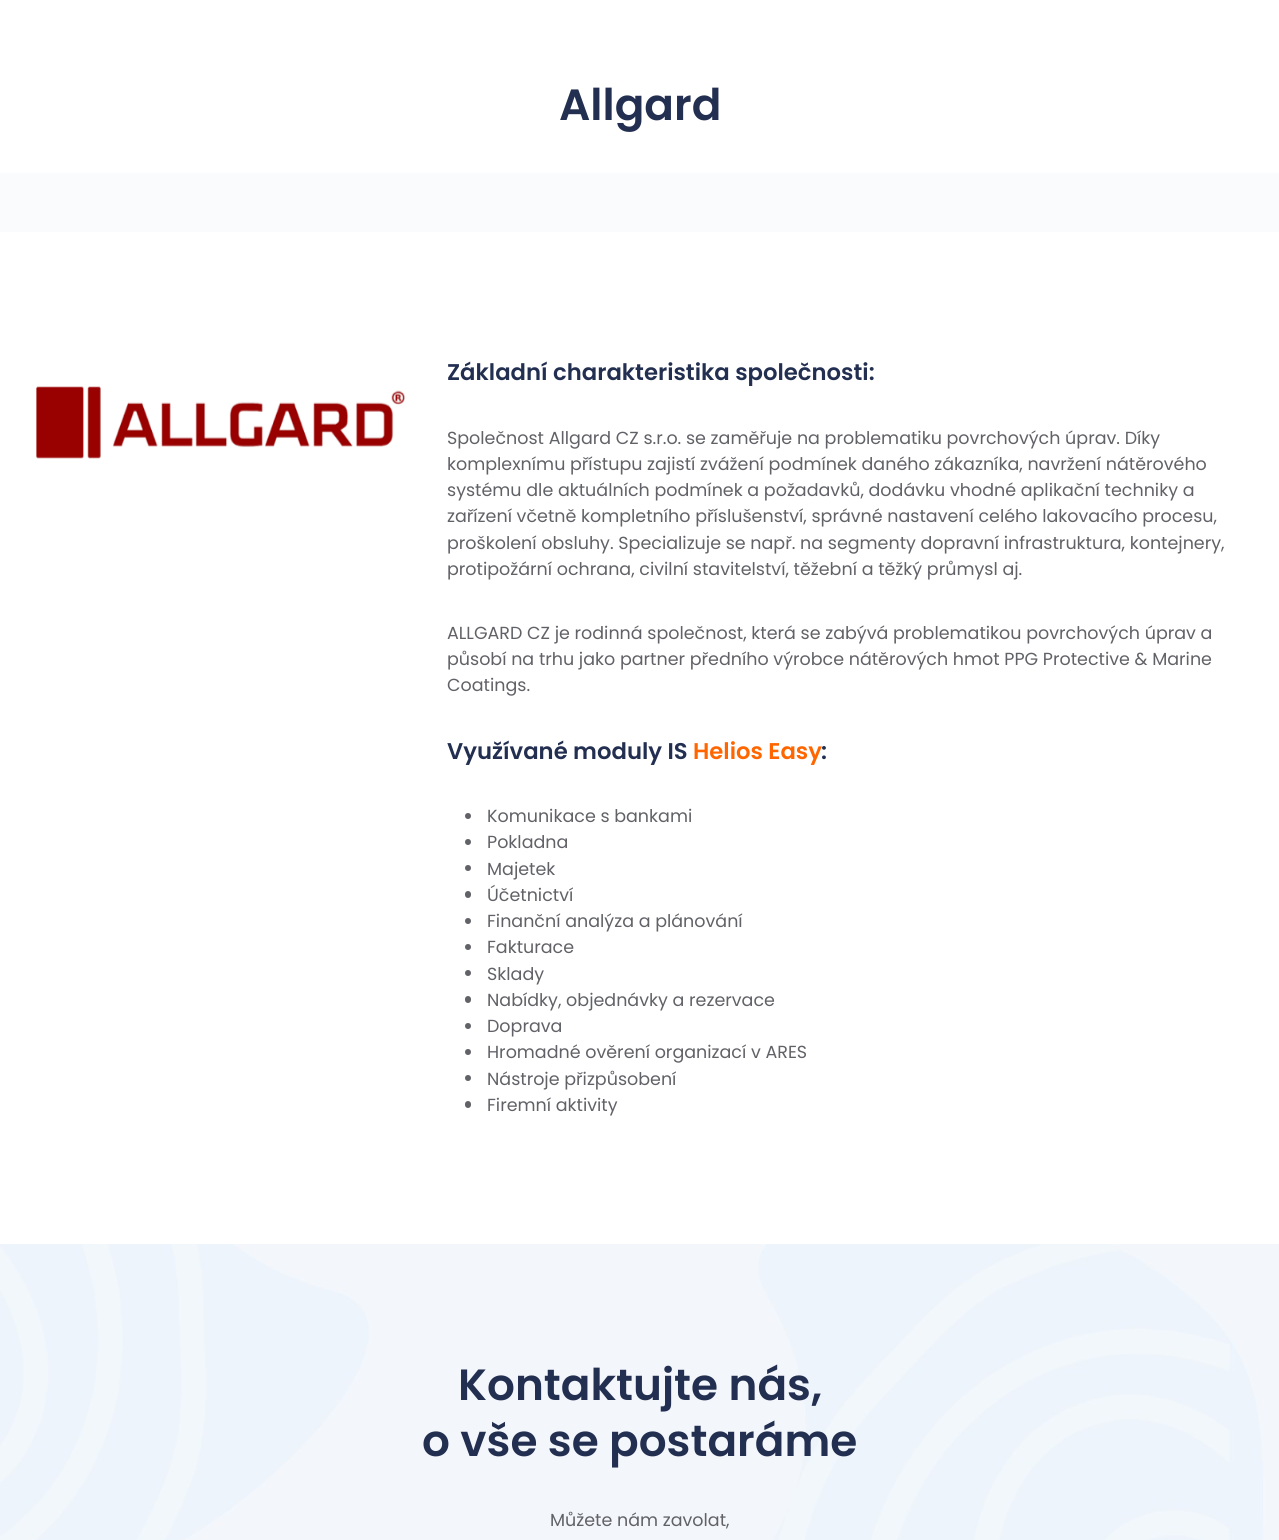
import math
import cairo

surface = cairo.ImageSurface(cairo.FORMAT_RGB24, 1279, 1540)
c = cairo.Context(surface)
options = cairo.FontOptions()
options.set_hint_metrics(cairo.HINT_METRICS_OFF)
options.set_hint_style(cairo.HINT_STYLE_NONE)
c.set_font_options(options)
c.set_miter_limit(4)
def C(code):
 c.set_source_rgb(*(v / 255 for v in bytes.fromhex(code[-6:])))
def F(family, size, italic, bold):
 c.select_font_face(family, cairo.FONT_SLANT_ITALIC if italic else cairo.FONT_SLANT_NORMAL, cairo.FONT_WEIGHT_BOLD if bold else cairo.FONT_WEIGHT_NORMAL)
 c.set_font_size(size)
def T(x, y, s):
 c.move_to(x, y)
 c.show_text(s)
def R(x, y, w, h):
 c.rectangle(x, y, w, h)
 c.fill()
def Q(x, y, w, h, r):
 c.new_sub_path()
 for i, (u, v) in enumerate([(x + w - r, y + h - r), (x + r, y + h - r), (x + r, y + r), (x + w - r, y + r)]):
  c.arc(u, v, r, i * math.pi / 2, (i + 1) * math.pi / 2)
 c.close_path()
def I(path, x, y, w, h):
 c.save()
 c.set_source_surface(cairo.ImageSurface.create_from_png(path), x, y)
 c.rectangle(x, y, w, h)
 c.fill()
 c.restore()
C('ffffff')
c.paint()
C('fafbfd')
R(0,173,1279,59)
F('Poppins SemiBold',43.75,0,0)
C('232f51')
T(559,120,'Allgard')
I('1.png',36,386,369,73)
F('Poppins SemiBold',22.75,0,0)
T(447,380,'Základní charakteristika společnosti:')
F('Poppins',17.5,0,0)
C('616267')
T(447,444,'Společnost Allgard CZ s.r.o. se zaměřuje na problematiku povrchových úprav. Díky')
T(447,470,'komplexnímu přístupu zajistí zvážení podmínek daného zákazníka, navržení nátěrového')
T(447,496,'systému dle aktuálních podmínek a požadavků, dodávku vhodné aplikační techniky a')
T(447,522,'zařízení včetně kompletního příslušenství, správné nastavení celého lakovacího procesu,')
T(447,549,'proškolení obsluhy. Specializuje se např. na segmenty dopravní infrastruktura, kontejnery,')
T(447,575,'protipožární ochrana, civilní stavitelství, těžební a těžký průmysl aj.')
T(447,639,'ALLGARD CZ je rodinná společnost, která se zabývá problematikou povrchových úprav a')
T(447,665,'působí na trhu jako partner předního výrobce nátěrových hmot PPG Protective & Marine')
T(447,691,'Coatings.')
F('Poppins SemiBold',22.75,0,0)
C('232f51')
T(447,759,'Využívané moduly IS')
C('ff6600')
T(693,759,'Helios Easy')
C('232f51')
T(821,759,':')
C('616267')
c.new_path()
c.arc(468,816,3,0,2 * math.pi)
c.fill()
F('Poppins',17.5,0,0)
T(487,822,'Komunikace s bankami')
c.new_path()
c.arc(468,842,3,0,2 * math.pi)
c.fill()
T(487,848,'Pokladna')
c.new_path()
c.arc(468,868,3,0,2 * math.pi)
c.fill()
T(487,875,'Majetek')
Q(465,891,6,7,3)
c.fill()
T(487,901,'Účetnictví')
c.new_path()
c.arc(468,921,3,0,2 * math.pi)
c.fill()
T(487,927,'Finanční analýza a plánování')
c.new_path()
c.arc(468,947,3,0,2 * math.pi)
c.fill()
T(487,953,'Fakturace')
c.new_path()
c.arc(468,973,3,0,2 * math.pi)
c.fill()
T(487,980,'Sklady')
Q(465,996,6,7,3)
c.fill()
T(487,1006,'Nabídky, objednávky a rezervace')
c.new_path()
c.arc(468,1026,3,0,2 * math.pi)
c.fill()
T(487,1032,'Doprava')
c.new_path()
c.arc(468,1052,3,0,2 * math.pi)
c.fill()
T(487,1058,'Hromadné ověrení organizací v ARES')
c.new_path()
c.arc(468,1078,3,0,2 * math.pi)
c.fill()
T(487,1085,'Nástroje přizpůsobení')
Q(465,1101,6,7,3)
c.fill()
T(487,1111,'Firemní aktivity')
I('2.png',0,1244,1279,296)
F('Poppins SemiBold',43.75,0,0)
C('232f51')
T(458,1400,'Kontaktujte nás,')
T(422,1456,'o vše se postaráme')
F('Poppins',17.5,0,0)
C('616267')
T(550,1526,'Můžete nám zavolat,')
surface.write_to_png('o.png')
